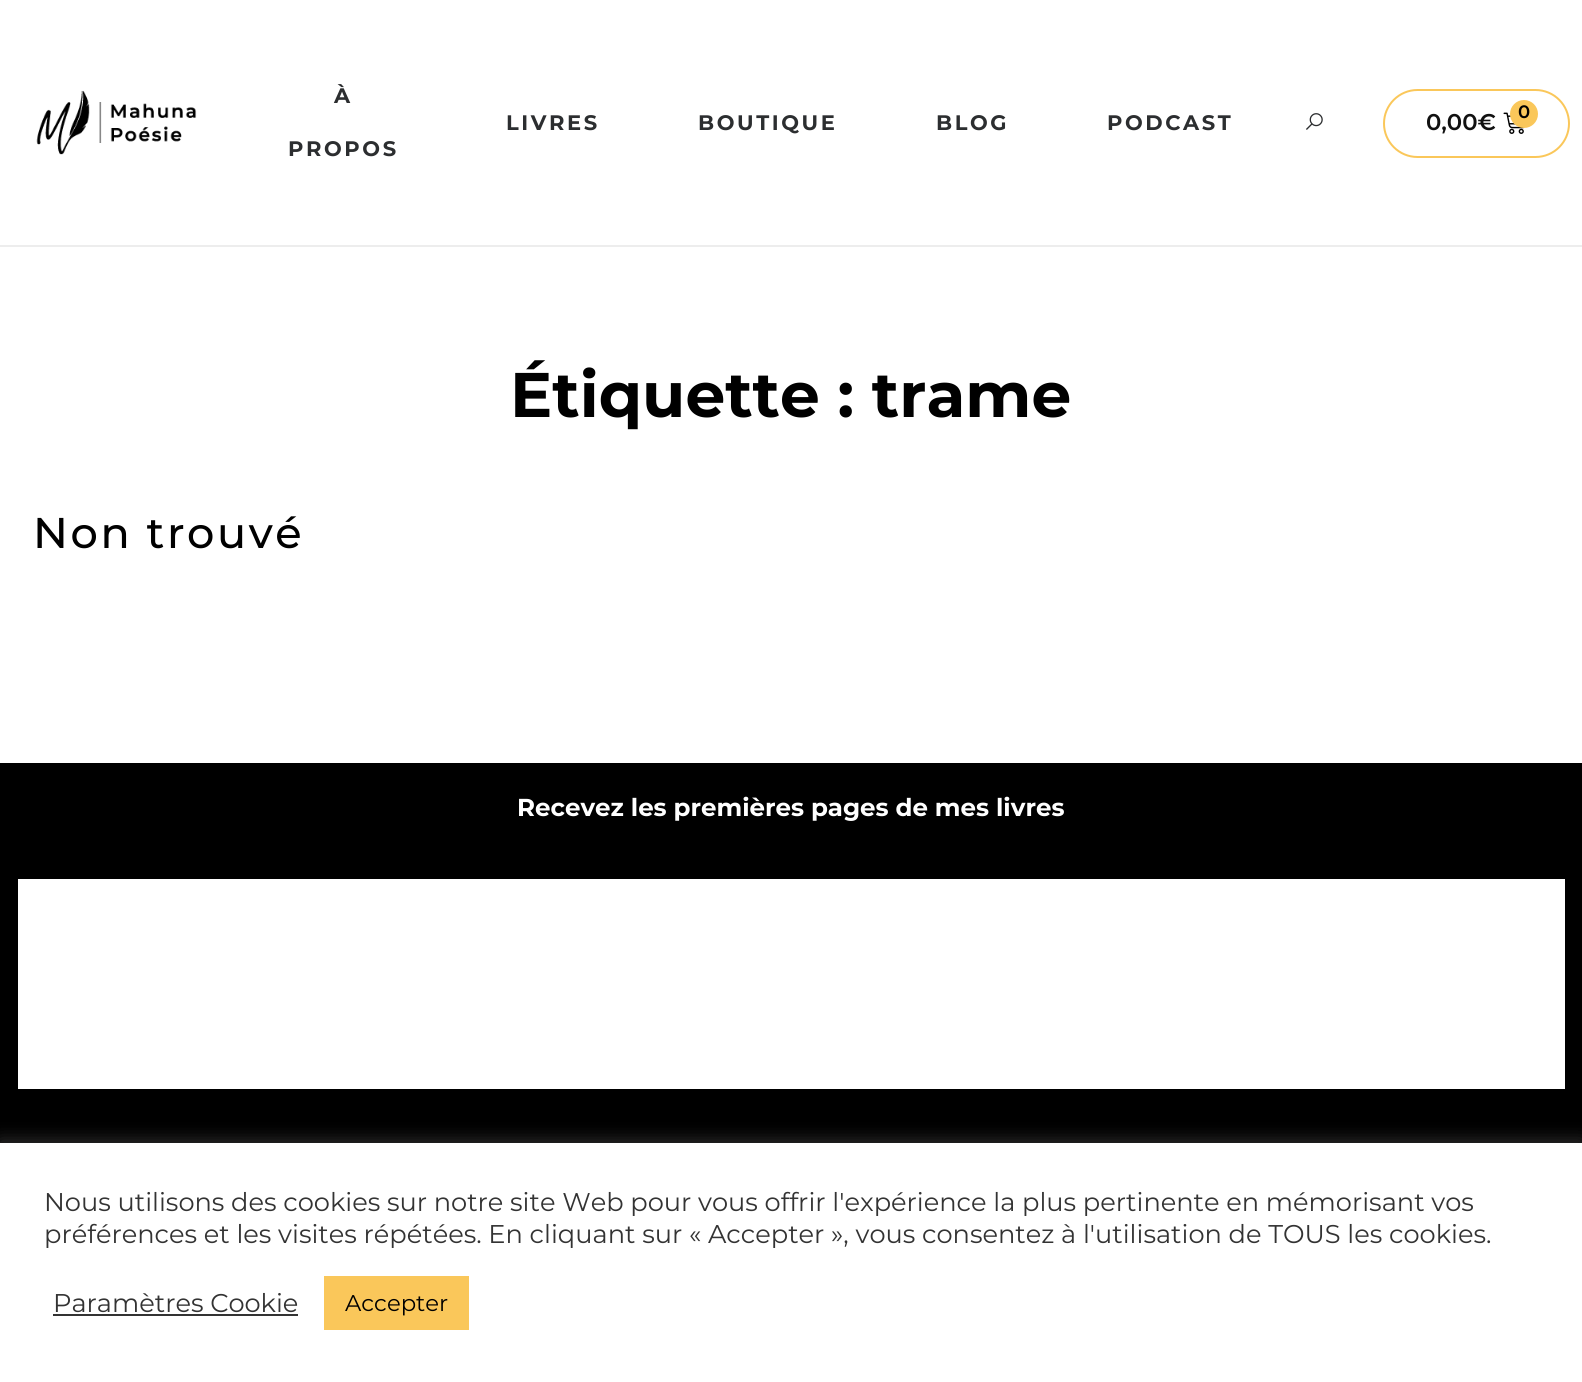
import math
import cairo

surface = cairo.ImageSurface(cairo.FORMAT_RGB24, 1582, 1382)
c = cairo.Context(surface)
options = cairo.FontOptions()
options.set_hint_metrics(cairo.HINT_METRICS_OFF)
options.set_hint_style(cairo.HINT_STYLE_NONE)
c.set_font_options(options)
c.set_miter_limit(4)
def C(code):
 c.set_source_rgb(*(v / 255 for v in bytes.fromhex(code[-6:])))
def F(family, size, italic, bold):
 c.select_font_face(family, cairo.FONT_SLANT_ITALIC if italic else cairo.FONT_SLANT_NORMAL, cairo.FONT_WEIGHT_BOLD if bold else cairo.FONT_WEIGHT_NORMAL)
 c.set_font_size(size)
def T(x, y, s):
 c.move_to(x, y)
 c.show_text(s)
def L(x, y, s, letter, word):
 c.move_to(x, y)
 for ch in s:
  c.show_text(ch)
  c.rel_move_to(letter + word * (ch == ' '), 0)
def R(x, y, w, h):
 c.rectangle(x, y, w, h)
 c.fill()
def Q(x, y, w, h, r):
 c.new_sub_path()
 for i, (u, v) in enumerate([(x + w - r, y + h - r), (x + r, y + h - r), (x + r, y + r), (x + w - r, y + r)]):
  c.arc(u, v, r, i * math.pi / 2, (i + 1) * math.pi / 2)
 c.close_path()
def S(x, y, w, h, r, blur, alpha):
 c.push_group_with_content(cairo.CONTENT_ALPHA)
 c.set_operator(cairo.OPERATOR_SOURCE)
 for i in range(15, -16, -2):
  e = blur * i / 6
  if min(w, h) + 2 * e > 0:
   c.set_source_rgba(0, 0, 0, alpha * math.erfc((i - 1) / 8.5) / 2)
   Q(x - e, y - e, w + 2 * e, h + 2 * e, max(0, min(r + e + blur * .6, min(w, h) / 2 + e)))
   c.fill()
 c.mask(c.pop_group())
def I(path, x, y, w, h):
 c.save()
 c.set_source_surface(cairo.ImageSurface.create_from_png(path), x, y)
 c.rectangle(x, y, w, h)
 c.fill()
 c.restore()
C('ffffff')
c.paint()
C('ededed')
R(0,245,1582,2)
I('1.png',36,90,161,65)
F('Montserrat',21,0,1)
C('2c2e30')
L(334,103,'À',2.6,0)
L(288,156,'PROPOS',2.6,0)
L(506,130,'LIVRES',2.6,0)
L(698,130,'BOUTIQUE',2.6,0)
L(936,130,'BLOG',2.6,0)
L(1107,130,'PODCAST',2.6,0)
I('2.png',1306,113,17,17)
Q(1384,90,185,67,33.5)
C('fac75a')
c.stroke()
F('Montserrat SemiBold',22.75,0,0)
C('111111')
T(1426,130,'0,00€')
I('3.png',1503,112,21,22)
C('fac75a')
c.arc(1524,114,14,0,2 * math.pi)
c.fill()
F('Montserrat SemiBold',18,0,0)
C('000000')
T(1518,118,'0')
F('Montserrat',63,0,1)
T(510,417,'Étiquette : trame')
F('Montserrat Medium',43,0,0)
L(33,548,'Non trouvé',2.6,0)
R(0,763,1582,380)
F('Montserrat',24.5,0,1)
C('ffffff')
T(517,816,'Recevez les premières pages de mes livres')
R(18,879,1547,210)
C('acabab')
S(0,1141,1582,240,0,9,.3)
C('ffffff')
R(0,1143,1582,239)
F('Montserrat',25.67,0,0)
C('333333')
T(44,1211,'Nous utilisons des cookies sur notre site Web pour vous offrir l\'expérience la plus pertinente en mémorisant vos')
T(44,1243,'préférences et les visites répétées. En cliquant sur « Accepter », vous consentez à l\'utilisation de TOUS les cookies.')
T(53,1312,'Paramètres Cookie')
R(53,1314,245,2)
C('fac75a')
R(324,1276,145,54)
F('Montserrat',22.75,0,0)
C('000000')
T(345,1311,'Accepter')
surface.write_to_png('o.png')
